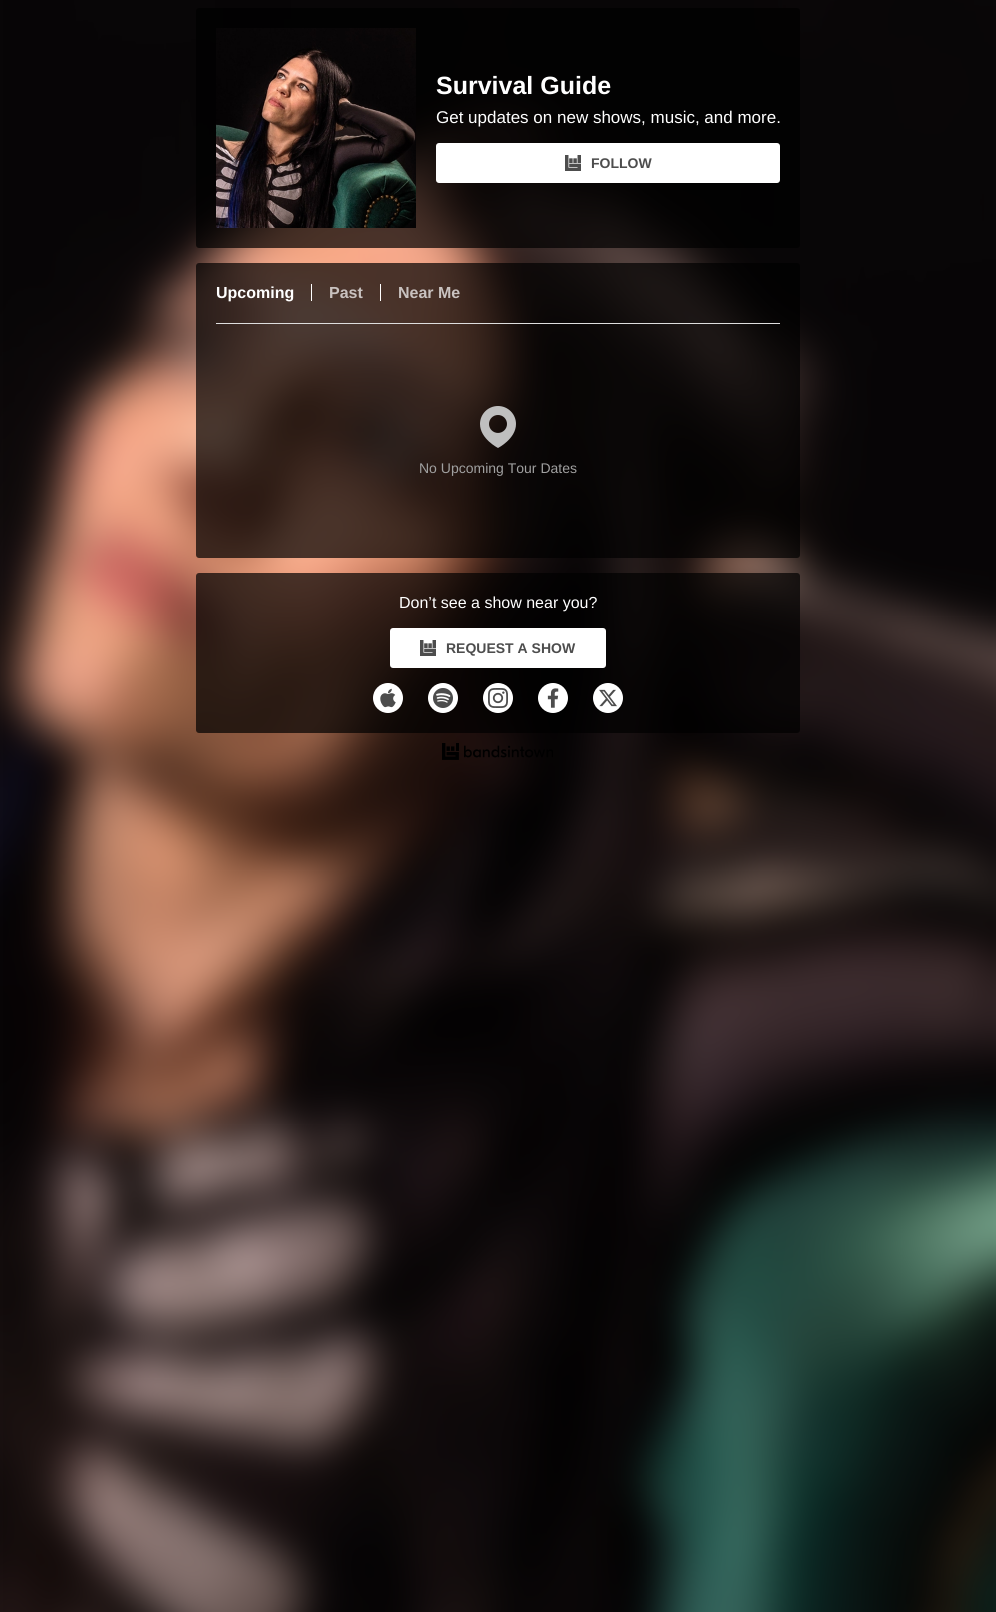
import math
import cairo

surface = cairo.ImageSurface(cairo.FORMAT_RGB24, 996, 1612)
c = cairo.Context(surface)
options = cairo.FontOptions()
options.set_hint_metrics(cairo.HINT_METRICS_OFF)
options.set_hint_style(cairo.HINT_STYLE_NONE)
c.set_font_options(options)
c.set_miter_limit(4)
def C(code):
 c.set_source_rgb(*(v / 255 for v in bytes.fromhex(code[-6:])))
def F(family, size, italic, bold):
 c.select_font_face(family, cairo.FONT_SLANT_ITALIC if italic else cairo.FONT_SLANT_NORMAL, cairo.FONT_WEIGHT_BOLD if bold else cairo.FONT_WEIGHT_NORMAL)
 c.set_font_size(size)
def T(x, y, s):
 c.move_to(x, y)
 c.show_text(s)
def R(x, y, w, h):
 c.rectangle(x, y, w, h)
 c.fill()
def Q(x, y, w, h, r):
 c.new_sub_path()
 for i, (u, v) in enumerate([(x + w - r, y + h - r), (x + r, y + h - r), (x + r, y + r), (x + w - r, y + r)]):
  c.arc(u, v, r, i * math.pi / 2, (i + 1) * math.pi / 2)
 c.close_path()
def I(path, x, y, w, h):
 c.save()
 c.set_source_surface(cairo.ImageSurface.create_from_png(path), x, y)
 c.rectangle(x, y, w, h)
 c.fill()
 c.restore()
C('ffffff')
c.paint()
I('1.png',0,0,996,1612)
c.set_source_rgba(0,0,0,0.7)
Q(196,8,604,240,3)
c.fill()
I('2.png',216,28,200,200)
F('Liberation Sans',25,0,1)
C('ffffff')
T(436,94,'Survival Guide')
F('Liberation Sans',17,0,0)
T(436,123,'Get updates on new shows, music, and more.')
Q(436,143,344,40,3)
c.fill()
I('3.png',565,155,16,16)
F('Liberation Sans',14,0,1)
C('4d4d4d')
T(591,168,'FOLLOW')
c.set_source_rgba(0,0,0,0.7)
Q(196,263,604,295,3)
c.fill()
F('Liberation Sans',16,0,1)
C('ffffff')
T(216,298,'Upcoming')
C('c9c2c0')
T(329,298,'Past')
C('ffffff')
R(311,284,1,17)
C('c9c2c0')
T(398,298,'Near Me')
C('ffffff')
R(380,284,1,17)
C('dedede')
R(216,323,564,1)
I('4.png',480,406,36,42)
F('Liberation Sans',14,0,0)
C('a0a0a0')
T(419,473,'No Upcoming Tour Dates')
c.set_source_rgba(0,0,0,0.7)
Q(196,573,604,160,3)
c.fill()
F('Liberation Sans',16,0,0)
C('ffffff')
T(399,608,'Don’t see a show near you?')
Q(390,628,216,40,3)
c.fill()
I('3.png',420,640,16,16)
F('Liberation Sans',14,0,1)
C('4d4d4d')
T(446,653,'REQUEST A SHOW')
C('ffffff')
c.new_path()
c.arc(388,698,15,0,2 * math.pi)
c.fill()
I('5.png',380,688,16,20)
c.arc(443,698,15,0,2 * math.pi)
c.fill()
I('6.png',433,688,20,20)
c.arc(498,698,15,0,2 * math.pi)
c.fill()
I('7.png',488,688,20,20)
c.arc(553,698,15,0,2 * math.pi)
c.fill()
I('8.png',547,688,12,20)
c.arc(608,698,15,0,2 * math.pi)
c.fill()
I('9.png',599,689,18,18)
I('10.png',442,743,111,17)
surface.write_to_png('o.png')
